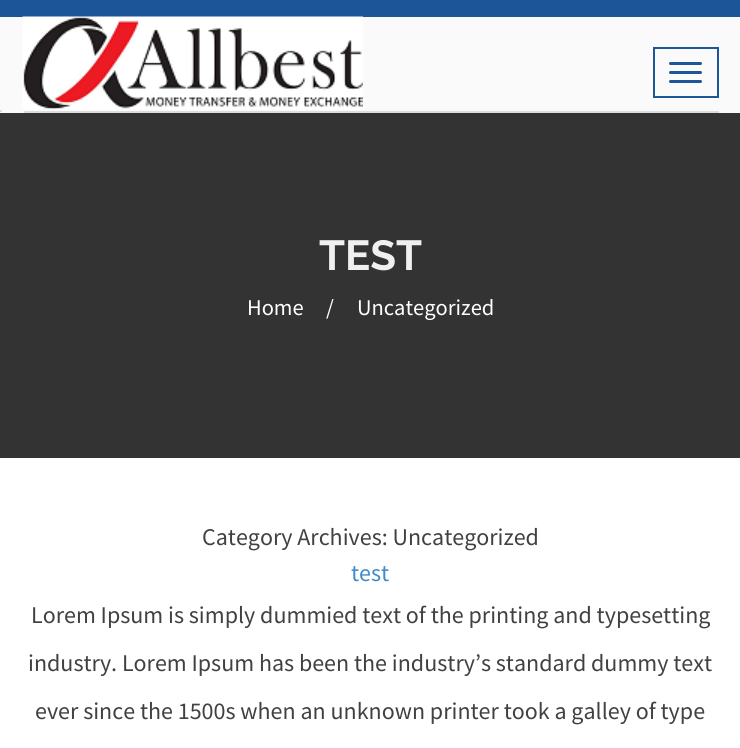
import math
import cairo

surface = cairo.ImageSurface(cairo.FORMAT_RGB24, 740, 748)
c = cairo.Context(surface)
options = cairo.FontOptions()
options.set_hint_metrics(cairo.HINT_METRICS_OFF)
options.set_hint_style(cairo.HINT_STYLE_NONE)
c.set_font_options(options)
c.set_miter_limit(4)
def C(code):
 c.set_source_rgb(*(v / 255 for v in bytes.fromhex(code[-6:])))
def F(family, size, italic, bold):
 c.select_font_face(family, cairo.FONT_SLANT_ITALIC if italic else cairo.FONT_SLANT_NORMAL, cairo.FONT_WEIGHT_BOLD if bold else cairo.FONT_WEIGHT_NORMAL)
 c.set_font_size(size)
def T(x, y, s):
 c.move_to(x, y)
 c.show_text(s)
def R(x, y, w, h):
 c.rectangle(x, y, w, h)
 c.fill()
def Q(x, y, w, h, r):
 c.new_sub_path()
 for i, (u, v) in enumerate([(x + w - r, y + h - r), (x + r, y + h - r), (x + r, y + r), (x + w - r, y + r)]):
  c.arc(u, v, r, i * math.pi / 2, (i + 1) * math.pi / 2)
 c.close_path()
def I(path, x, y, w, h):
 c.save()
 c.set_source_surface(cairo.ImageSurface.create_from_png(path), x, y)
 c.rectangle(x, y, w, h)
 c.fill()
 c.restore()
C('ffffff')
c.paint()
C('1d5599')
R(0,0,740,17)
C('fbfafa')
R(0,17,740,96)
I('1.png',22,16,341,94)
C('dedddd')
R(0,110,2,2)
R(24,111,695,2)
c.rectangle(654,48,64,49)
C('1d5599')
c.stroke()
Q(669,62,33,3,1.5)
c.fill()
Q(669,71,33,3,1.5)
c.fill()
Q(669,80,33,3,1.5)
c.fill()
C('333333')
R(0,113,740,345)
F('Raleway',42,0,1)
C('f0f0f1')
T(319,270,'TEST')
F('Source Sans Pro',22.5,0,0)
C('ffffff')
T(247,315,'Home')
T(326,315,'/')
T(357,315,'Uncategorized')
F('Source Sans Pro',24,0,0)
C('424141')
T(202,545,'Category Archives: Uncategorized')
C('428bca')
T(351,581,'test')
C('424141')
T(31,623,'Lorem Ipsum is simply dummied text of the printing and typesetting')
T(28,671,'industry. Lorem Ipsum has been the industry’s standard dummy text')
T(35,719,'ever since the 1500s when an unknown printer took a galley of type')
surface.write_to_png('o.png')
